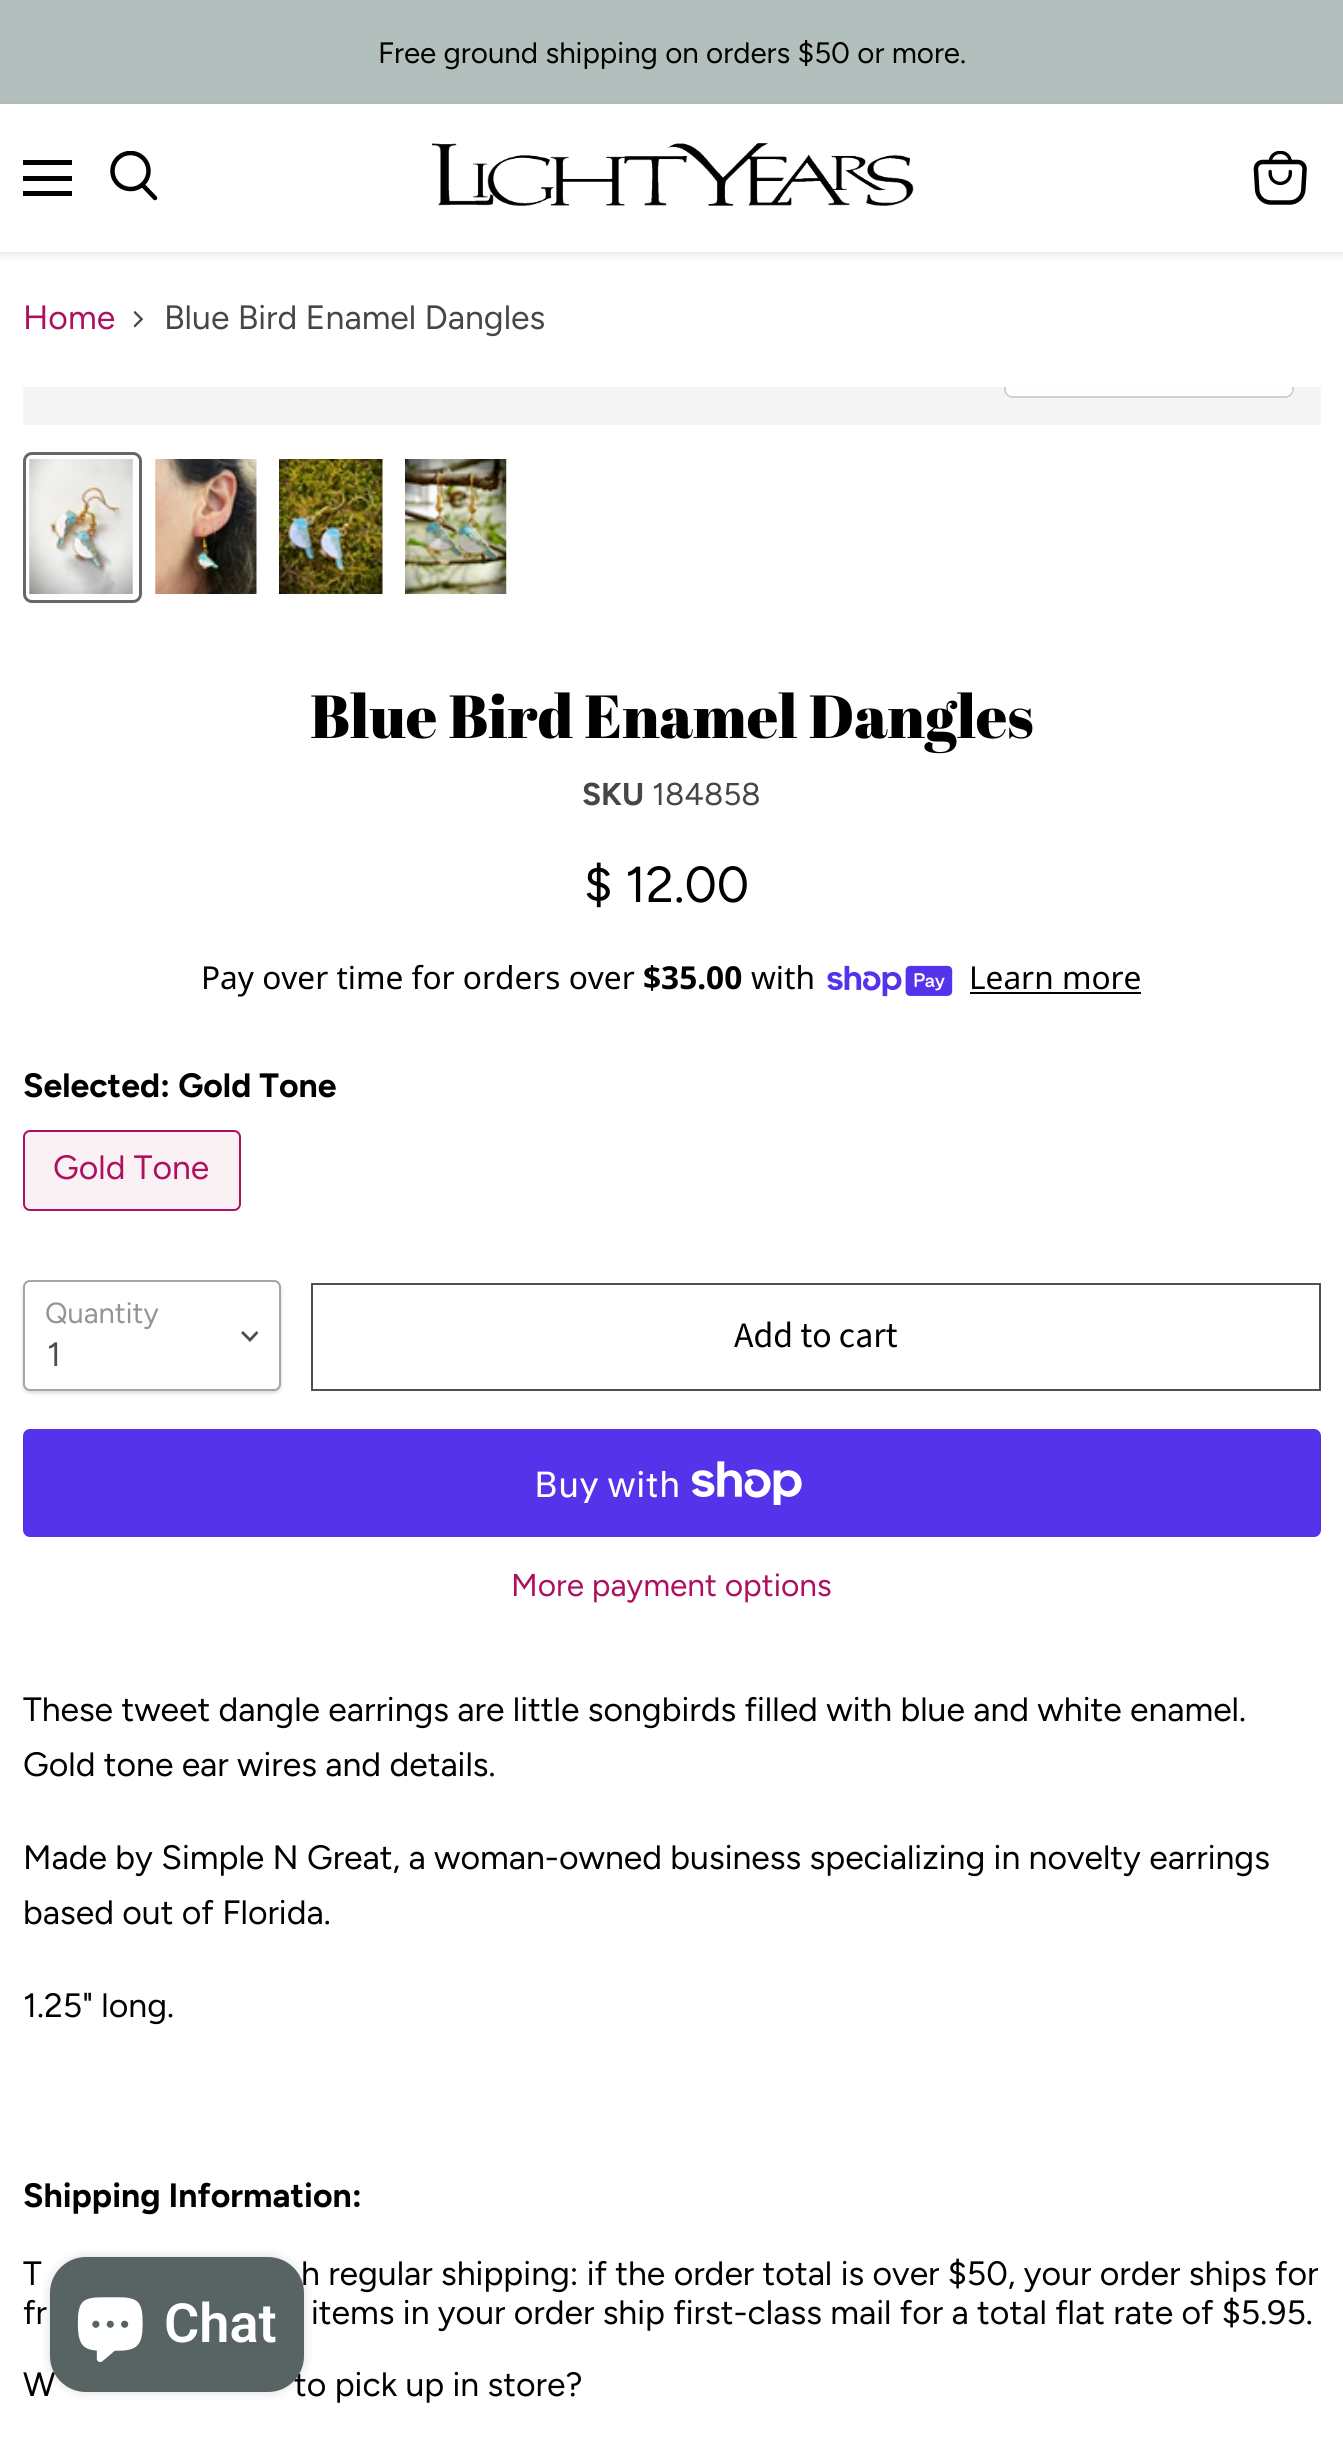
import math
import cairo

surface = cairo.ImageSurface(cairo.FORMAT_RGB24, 1343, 2438)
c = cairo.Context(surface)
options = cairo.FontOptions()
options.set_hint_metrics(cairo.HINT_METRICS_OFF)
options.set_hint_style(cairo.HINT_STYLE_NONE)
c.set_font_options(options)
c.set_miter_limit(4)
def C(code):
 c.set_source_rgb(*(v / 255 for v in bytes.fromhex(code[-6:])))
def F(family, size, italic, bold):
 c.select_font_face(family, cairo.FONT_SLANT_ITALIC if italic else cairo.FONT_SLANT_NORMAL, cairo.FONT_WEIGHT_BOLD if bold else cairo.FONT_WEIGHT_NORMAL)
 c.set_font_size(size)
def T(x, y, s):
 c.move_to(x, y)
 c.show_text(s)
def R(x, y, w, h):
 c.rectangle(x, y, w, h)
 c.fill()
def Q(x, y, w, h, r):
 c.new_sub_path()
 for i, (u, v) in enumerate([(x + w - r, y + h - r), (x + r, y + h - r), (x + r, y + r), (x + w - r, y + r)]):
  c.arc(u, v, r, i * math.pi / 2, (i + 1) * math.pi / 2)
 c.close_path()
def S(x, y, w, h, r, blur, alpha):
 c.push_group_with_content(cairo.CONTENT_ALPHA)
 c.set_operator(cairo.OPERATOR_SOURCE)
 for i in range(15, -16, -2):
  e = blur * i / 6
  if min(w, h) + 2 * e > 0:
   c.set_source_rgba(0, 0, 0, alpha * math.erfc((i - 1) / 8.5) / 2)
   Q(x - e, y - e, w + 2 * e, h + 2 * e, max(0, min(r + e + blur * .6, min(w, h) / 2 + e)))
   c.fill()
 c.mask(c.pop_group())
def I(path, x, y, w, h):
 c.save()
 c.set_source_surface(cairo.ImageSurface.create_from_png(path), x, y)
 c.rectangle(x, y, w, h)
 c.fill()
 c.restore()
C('ffffff')
c.paint()
C('b3bfbd')
R(0,0,1343,104)
F('Figtree',29.5,0,0)
C('000000')
T(378,63,'Free ground shipping on orders $50 or more.')
C('808080')
S(0,106,1343,148,0,4.5,.25)
C('ffffff')
R(0,104,1343,148)
C('000000')
R(23,160,49,5)
R(23,176,49,5)
R(23,191,49,5)
c.new_path()
c.move_to(155,198)
c.line_to(143,185.5)
c.set_line_width(4.5)
c.set_line_cap(cairo.LINE_CAP_ROUND)
c.stroke()
c.save()
c.rectangle(108,151,52,54)
c.clip()
c.arc(130.5,171,18,0,2 * math.pi)
c.set_line_cap(cairo.LINE_CAP_BUTT)
c.stroke()
c.restore()
I('1.png',431,143,483,63)
I('2.png',1253,151,54,54)
F('Figtree',33.75,0,0)
C('ac105f')
T(23,329,'Home')
I('3.png',133,311,11,17)
C('464646')
T(164,329,'Blue Bird Enamel Dangles')
C('f5f5f5')
R(23,387,1298,38)
c.save()
c.rectangle(23,387,1298,38)
c.clip()
Q(1005,334,288,63,8)
C('d0d0d0')
c.set_line_width(2)
c.set_line_cap(cairo.LINE_CAP_BUTT)
c.stroke()
c.restore()
c.set_source_rgba(1,1,1,0.9)
c.new_path()
c.move_to(1006,387)
c.line_to(1292,387)
c.line_to(1292,389)
c.curve_to(1292,393,1289,396,1285,396)
c.line_to(1013,396)
c.curve_to(1009,396,1006,393,1006,389)
c.close_path()
c.fill()
Q(24.5,453.5,116,148,7.5)
C('676767')
c.set_line_width(3)
c.set_line_cap(cairo.LINE_CAP_BUTT)
c.stroke()
I('4.png',29,459,104,135)
I('5.png',155,459,102,135)
I('6.png',279,459,104,135)
I('7.png',405,459,102,135)
F('Abril Fatface',60.75,0,0)
C('000000')
T(310,738,'Blue Bird Enamel Dangles')
F('Figtree',31.5,0,1)
C('464646')
T(582,805,'SKU')
F('Figtree',31.5,0,0)
T(652,805,'184858')
F('Figtree',50.5,0,0)
C('000000')
T(584,902,'$ 12.00')
F('Noto Sans',31.6,0,0)
T(201,989,'Pay over time for orders over')
F('Noto Sans',31.6,0,1)
T(643,989,'$35.00')
F('Noto Sans',31.6,0,0)
T(751,989,'with')
I('8.png',827,965,126,32)
T(969,989,'Learn more')
R(970,992,171,2)
F('Figtree',33.75,0,1)
T(23,1097,'Selected: Gold Tone')
C('faf1f5')
Q(24,1131,216,79,6)
c.fill_preserve()
C('ac105f')
c.set_line_width(2)
c.stroke()
F('Figtree',33.75,0,0)
T(53,1179,'Gold Tone')
C('000000')
S(23,1283,258,110,7,2,.15)
C('ffffff')
Q(24,1281,256,109,6)
c.fill_preserve()
C('a4a4a4')
c.stroke()
F('Figtree',29,0,0)
C('949494')
T(45,1323,'Quantity')
c.new_path()
c.move_to(250,1340)
c.line_to(256.5,1333)
c.move_to(250,1340)
c.line_to(243,1333)
C('4d4d4d')
c.set_line_width(2.8)
c.set_line_cap(cairo.LINE_CAP_SQUARE)
c.stroke()
F('Figtree',33.75,0,0)
T(47,1366,'1')
c.rectangle(312,1284,1008,106)
C('505050')
c.set_line_width(2)
c.set_line_cap(cairo.LINE_CAP_BUTT)
c.stroke()
F('Source Sans Pro',35.75,0,0)
C('000000')
T(734,1347,'Add to cart')
C('5433eb')
Q(23,1429,1298,108,7)
c.fill()
F('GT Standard',36,0,0)
C('ffffff')
T(534,1497,'Buy with')
I('9.png',692,1461,110,44)
F('Figtree',31.6,0,0)
C('ac105f')
T(511,1596,'More payment options')
F('Figtree',33.75,0,0)
C('000000')
T(23,1721,'These tweet dangle earrings are little songbirds filled with blue and white enamel.')
T(23,1776,'Gold tone ear wires and details.')
T(23,1869,'Made by Simple N Great, a woman-owned business specializing in novelty earrings')
T(23,1924,'based out of Florida.')
T(23,2017,'1.25" long.')
F('Figtree',33.75,0,1)
T(23,2207,'Shipping Information:')
F('Figtree',33.75,0,0)
T(23,2285,'T')
T(301,2285,'h regular shipping: if the order total is over $50, your order ships for')
T(23,2324,'fr')
T(311,2324,'items in your order ship first-class mail for a total flat rate of $5.95.')
T(23,2396,'W')
T(294,2396,'to pick up in store?')
C('000000')
S(50,2257,254,135,36,5.5,.15)
C('586363')
Q(50,2257,254,135,36)
c.fill()
I('10.png',77,2297,66,65)
F('Roboto SemiBold',54,0,0)
C('ffffff')
T(164,2342,'Chat')
surface.write_to_png('o.png')
